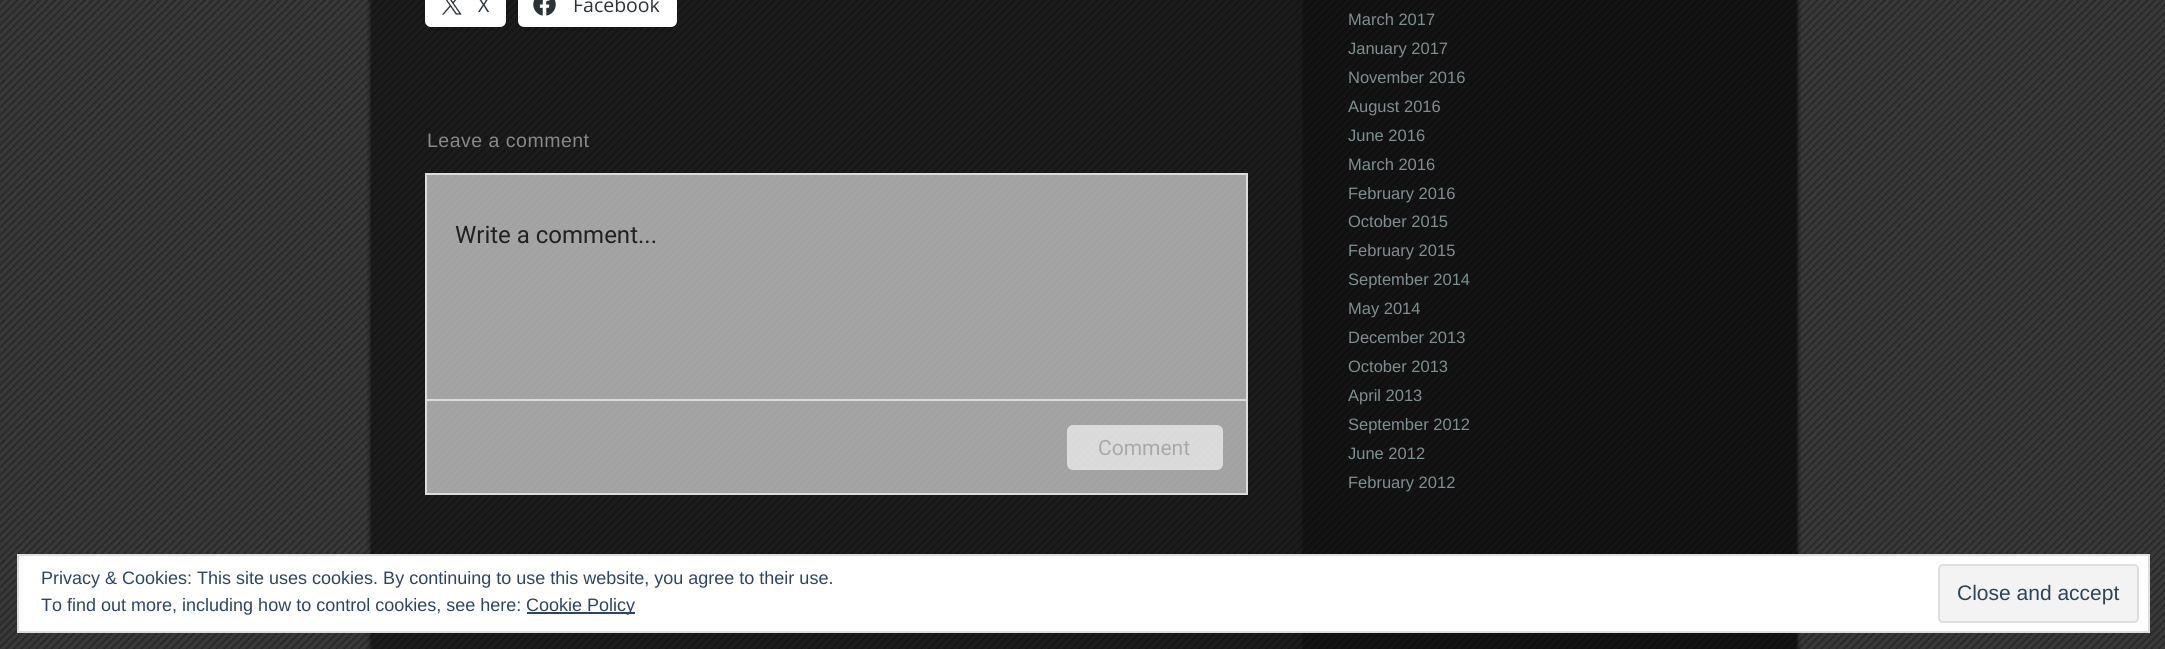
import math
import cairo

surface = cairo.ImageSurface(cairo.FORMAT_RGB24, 2165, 649)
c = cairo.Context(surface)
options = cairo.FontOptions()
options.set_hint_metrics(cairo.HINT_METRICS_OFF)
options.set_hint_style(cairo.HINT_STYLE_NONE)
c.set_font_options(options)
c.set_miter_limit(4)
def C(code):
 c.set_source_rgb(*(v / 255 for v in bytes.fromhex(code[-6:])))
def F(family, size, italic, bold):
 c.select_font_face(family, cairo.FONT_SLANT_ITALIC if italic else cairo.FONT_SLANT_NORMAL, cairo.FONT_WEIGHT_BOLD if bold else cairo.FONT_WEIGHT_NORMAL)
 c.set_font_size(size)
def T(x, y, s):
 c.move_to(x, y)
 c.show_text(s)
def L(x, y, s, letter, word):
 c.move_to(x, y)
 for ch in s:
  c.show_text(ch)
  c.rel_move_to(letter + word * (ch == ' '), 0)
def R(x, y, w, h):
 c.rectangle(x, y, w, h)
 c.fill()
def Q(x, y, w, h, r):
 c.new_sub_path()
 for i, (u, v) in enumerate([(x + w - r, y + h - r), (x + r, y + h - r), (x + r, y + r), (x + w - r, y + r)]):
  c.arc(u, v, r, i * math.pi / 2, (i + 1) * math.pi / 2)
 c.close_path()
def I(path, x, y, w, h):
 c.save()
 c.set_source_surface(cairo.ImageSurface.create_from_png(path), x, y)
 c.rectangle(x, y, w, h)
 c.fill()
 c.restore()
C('ffffff')
c.paint()
I('1.png',0,0,2165,649)
I('2.png',367,0,1434,649)
Q(424,-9,82,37,7)
c.set_source_rgba(0,0,0,0.12)
c.stroke()
C('ffffff')
Q(425,-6,81,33,6)
c.fill()
I('3.png',442,0,20,15)
F('Open Sans',19.5,0,0)
C('2c3338')
T(478,12,'X')
Q(517,-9,160,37,7)
c.set_source_rgba(0,0,0,0.12)
c.stroke()
C('ffffff')
Q(518,-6,159,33,6)
c.fill()
I('4.png',533,0,23,16)
C('2c3338')
T(573,12,'Facebook')
F('Liberation Sans',19.5,0,0)
C('888888')
L(427,147,'Leave a comment',.5,0)
c.set_source_rgba(1,1,1,0.6)
c.rectangle(426,174,821,320)
c.fill_preserve()
C('dcdcde')
c.stroke()
F('Roboto',24,0,0)
C('212121')
T(455,243,'Write a comment...')
C('dcdcde')
R(426,399,821,2)
c.set_source_rgba(1,1,1,0.6)
Q(1068,426,154,43,5)
c.fill_preserve()
C('dcdcde')
c.stroke()
F('Roboto',21,0,0)
C('a7aaad')
T(1098,455,'Comment')
F('Liberation Sans',16.5,0,0)
C('7f8e91')
T(1348,25,'March 2017')
T(1348,54,'January 2017')
T(1348,83,'November 2016')
T(1348,112,'August 2016')
T(1348,141,'June 2016')
T(1348,170,'March 2016')
T(1348,199,'February 2016')
T(1348,227,'October 2015')
T(1348,256,'February 2015')
T(1348,285,'September 2014')
T(1348,314,'May 2014')
T(1348,343,'December 2013')
T(1348,372,'October 2013')
T(1348,401,'April 2013')
T(1348,430,'September 2012')
T(1348,459,'June 2012')
T(1348,488,'February 2012')
C('ffffff')
c.rectangle(18,555,2131,77)
c.fill_preserve()
C('dedede')
c.stroke()
F('Liberation Sans',18,0,0)
C('2e4467')
T(41,584,'Privacy & Cookies: This site uses cookies. By continuing to use this website, you agree to their use.')
T(41,611,'To find out more, including how to control cookies, see here:')
R(527,612,108,2)
T(526,611,'Cookie Policy')
C('f3f3f3')
Q(1939,565,199,57,4)
c.fill_preserve()
C('dedede')
c.stroke()
F('Liberation Sans',21,0,0)
C('2e4453')
T(1957,600,'Close and accept')
surface.write_to_png('o.png')
